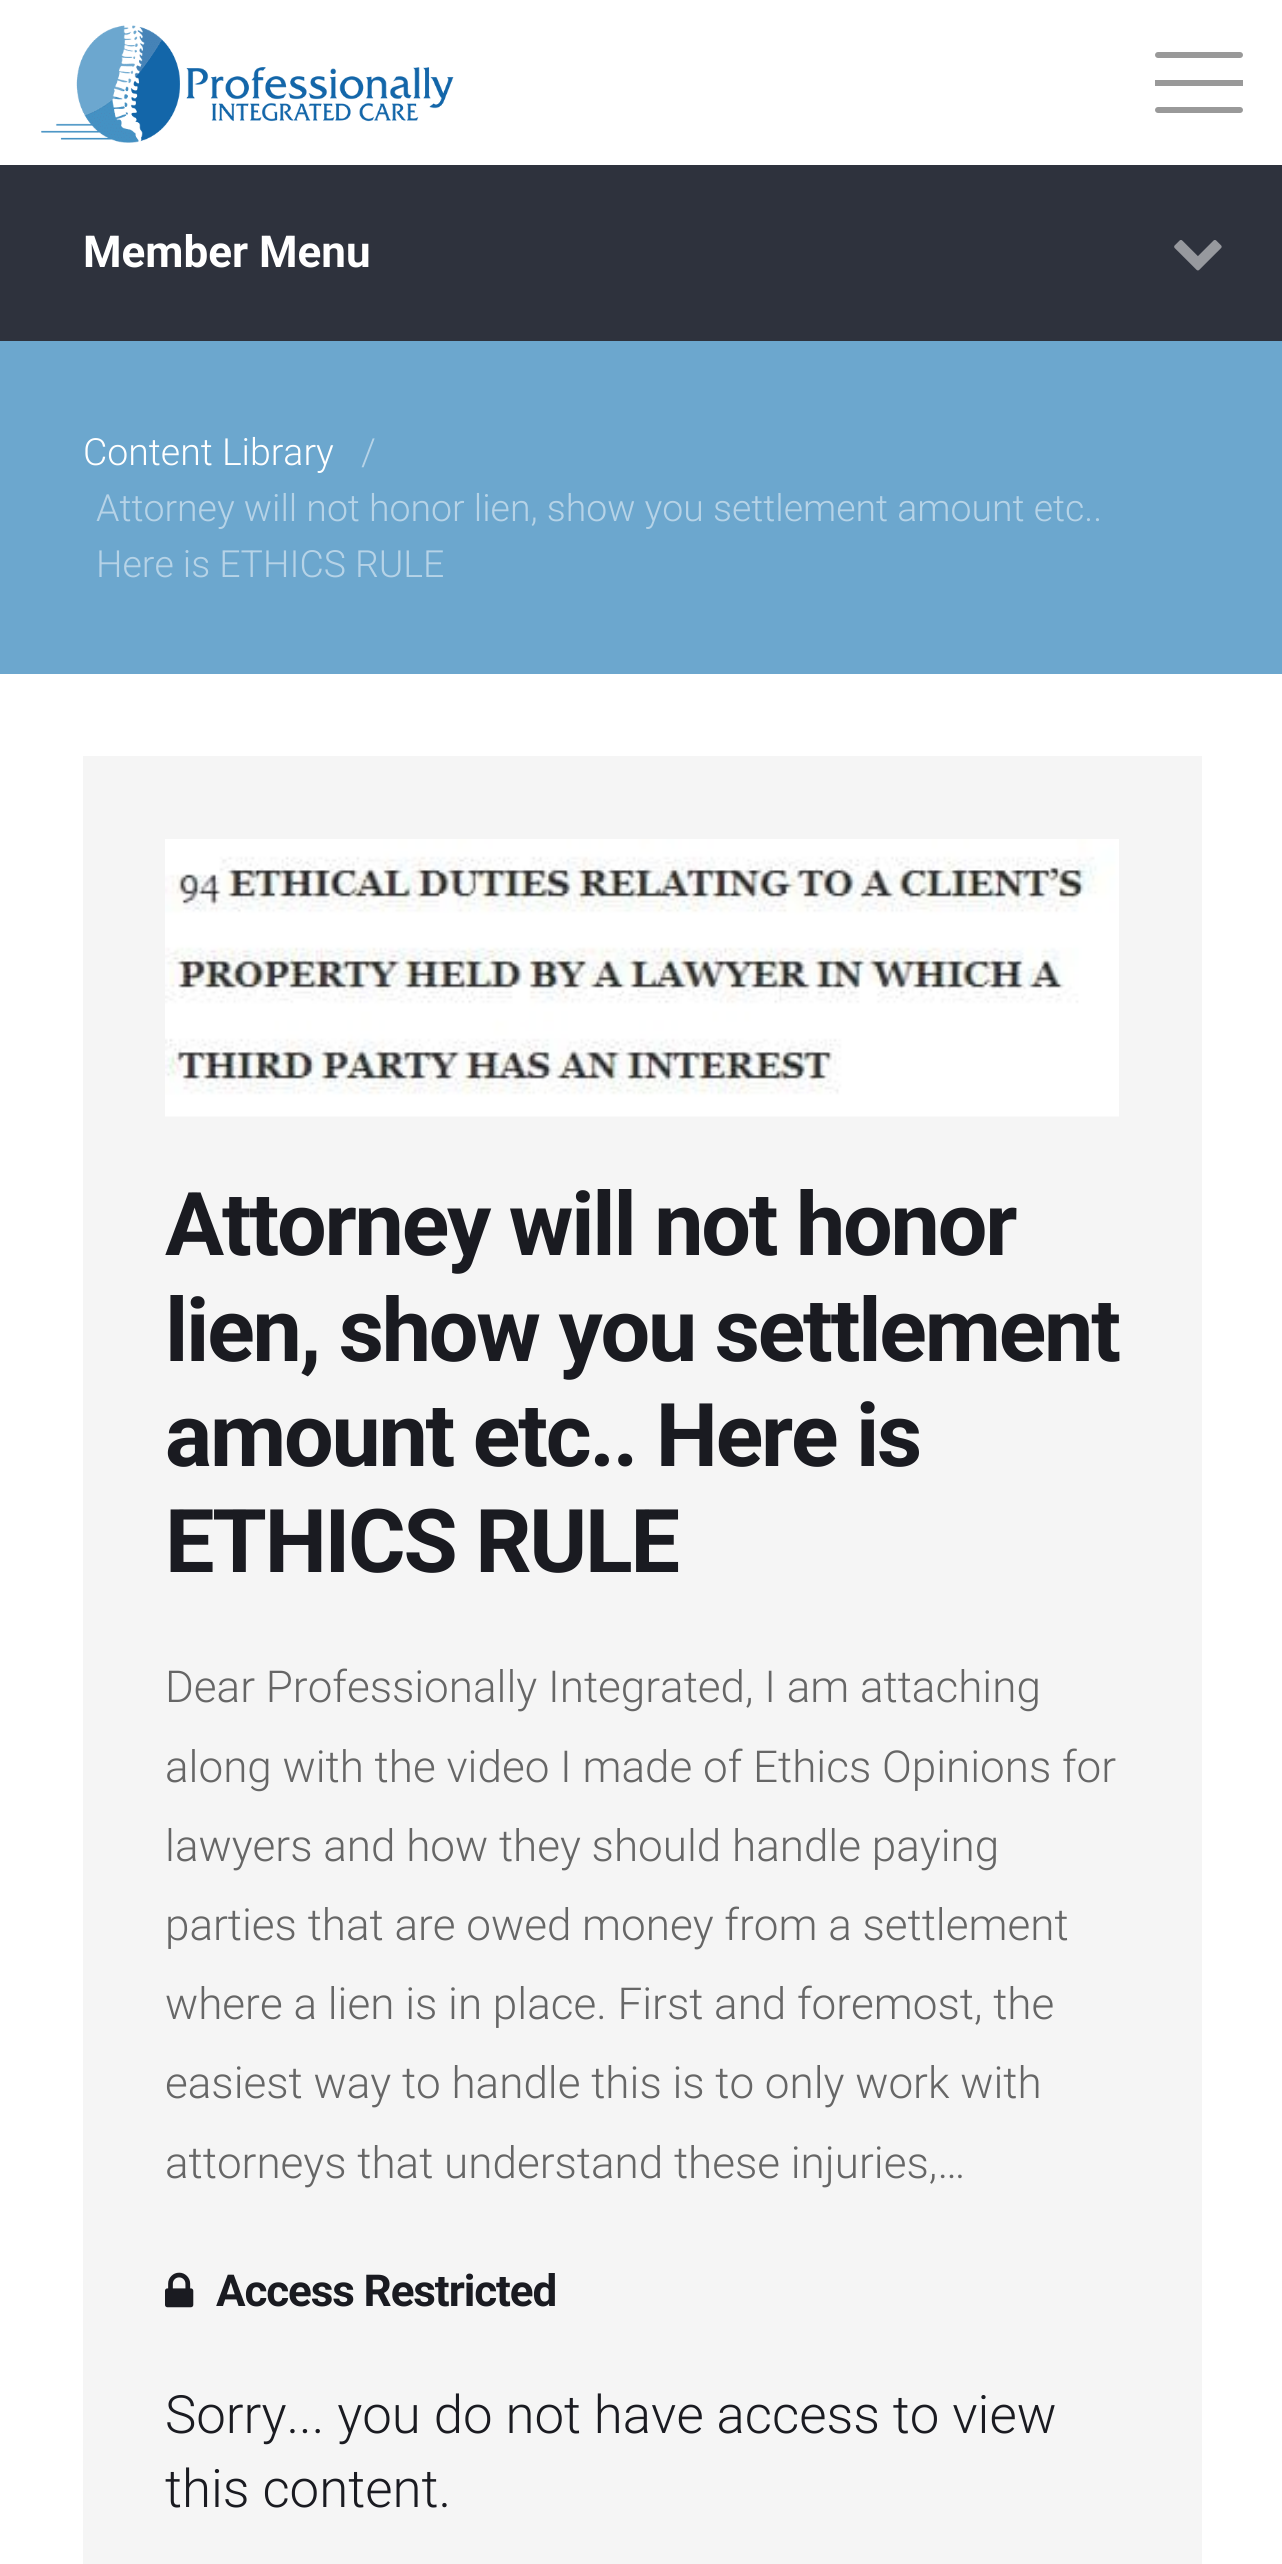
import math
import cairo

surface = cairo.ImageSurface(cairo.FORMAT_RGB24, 1282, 2564)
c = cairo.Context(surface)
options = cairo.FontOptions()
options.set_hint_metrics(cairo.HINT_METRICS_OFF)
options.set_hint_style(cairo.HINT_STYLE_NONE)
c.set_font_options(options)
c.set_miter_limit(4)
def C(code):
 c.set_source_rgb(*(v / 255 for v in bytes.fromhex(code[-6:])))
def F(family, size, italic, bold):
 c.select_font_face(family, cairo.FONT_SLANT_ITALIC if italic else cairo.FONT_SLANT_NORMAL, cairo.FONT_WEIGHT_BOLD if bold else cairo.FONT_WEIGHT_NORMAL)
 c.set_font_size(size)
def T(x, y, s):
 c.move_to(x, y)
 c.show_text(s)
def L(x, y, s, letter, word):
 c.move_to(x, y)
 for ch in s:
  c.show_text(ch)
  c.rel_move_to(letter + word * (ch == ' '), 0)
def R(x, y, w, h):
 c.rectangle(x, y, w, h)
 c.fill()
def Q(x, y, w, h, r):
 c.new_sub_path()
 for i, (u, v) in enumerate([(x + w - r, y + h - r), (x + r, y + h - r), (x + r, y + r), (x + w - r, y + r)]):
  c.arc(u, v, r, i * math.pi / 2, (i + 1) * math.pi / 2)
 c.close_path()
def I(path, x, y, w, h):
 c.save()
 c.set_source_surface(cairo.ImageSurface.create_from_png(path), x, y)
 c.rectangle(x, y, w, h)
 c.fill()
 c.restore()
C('ffffff')
c.paint()
I('1.png',41,25,413,118)
C('999999')
R(1155,80,88,6)
Q(1155,52,88,6,3)
c.fill()
Q(1155,107,88,6,3)
c.fill()
C('2e323d')
R(0,165,1282,176)
F('Roboto',44,0,1)
C('ffffff')
T(83,267,'Member Menu')
I('2.png',1174,240,48,31)
C('6ca7ce')
R(0,341,1282,333)
F('Roboto Light',37.4,0,0)
C('ffffff')
T(83,465,'Content Library')
C('b6d3e7')
T(361,465,'/')
T(96,521,'Attorney will not honor lien, show you settlement amount etc..')
T(96,577,'Here is ETHICS RULE')
C('f5f5f5')
R(83,756,1119,1808)
I('3.png',165,839,954,278)
F('Roboto',88,0,1)
C('1a1b21')
L(165,1255,'Attorney will not honor',-2.2,0)
L(165,1361,'lien, show you settlement',-2.2,0)
L(165,1466,'amount etc.. Here is',-2.2,0)
L(165,1572,'ETHICS RULE',-2.2,0)
F('Roboto Light',44,0,0)
C('666666')
T(165,1702,'Dear Professionally Integrated, I am attaching')
T(165,1782,'along with the video I made of Ethics Opinions for')
T(165,1861,'lawyers and how they should handle paying')
T(165,1940,'parties that are owed money from a settlement')
T(165,2019,'where a lien is in place. First and foremost, the')
T(165,2098,'easiest way to handle this is to only work with')
T(165,2178,'attorneys that understand these injuries,…')
I('4.png',165,2272,29,36)
F('Roboto',44,0,1)
C('1a1b21')
L(216,2306,'Access Restricted',-1.1,0)
F('Roboto Light',52.75,0,0)
T(165,2433,'Sorry... you do not have access to view')
T(165,2507,'this content.')
surface.write_to_png('o.png')
